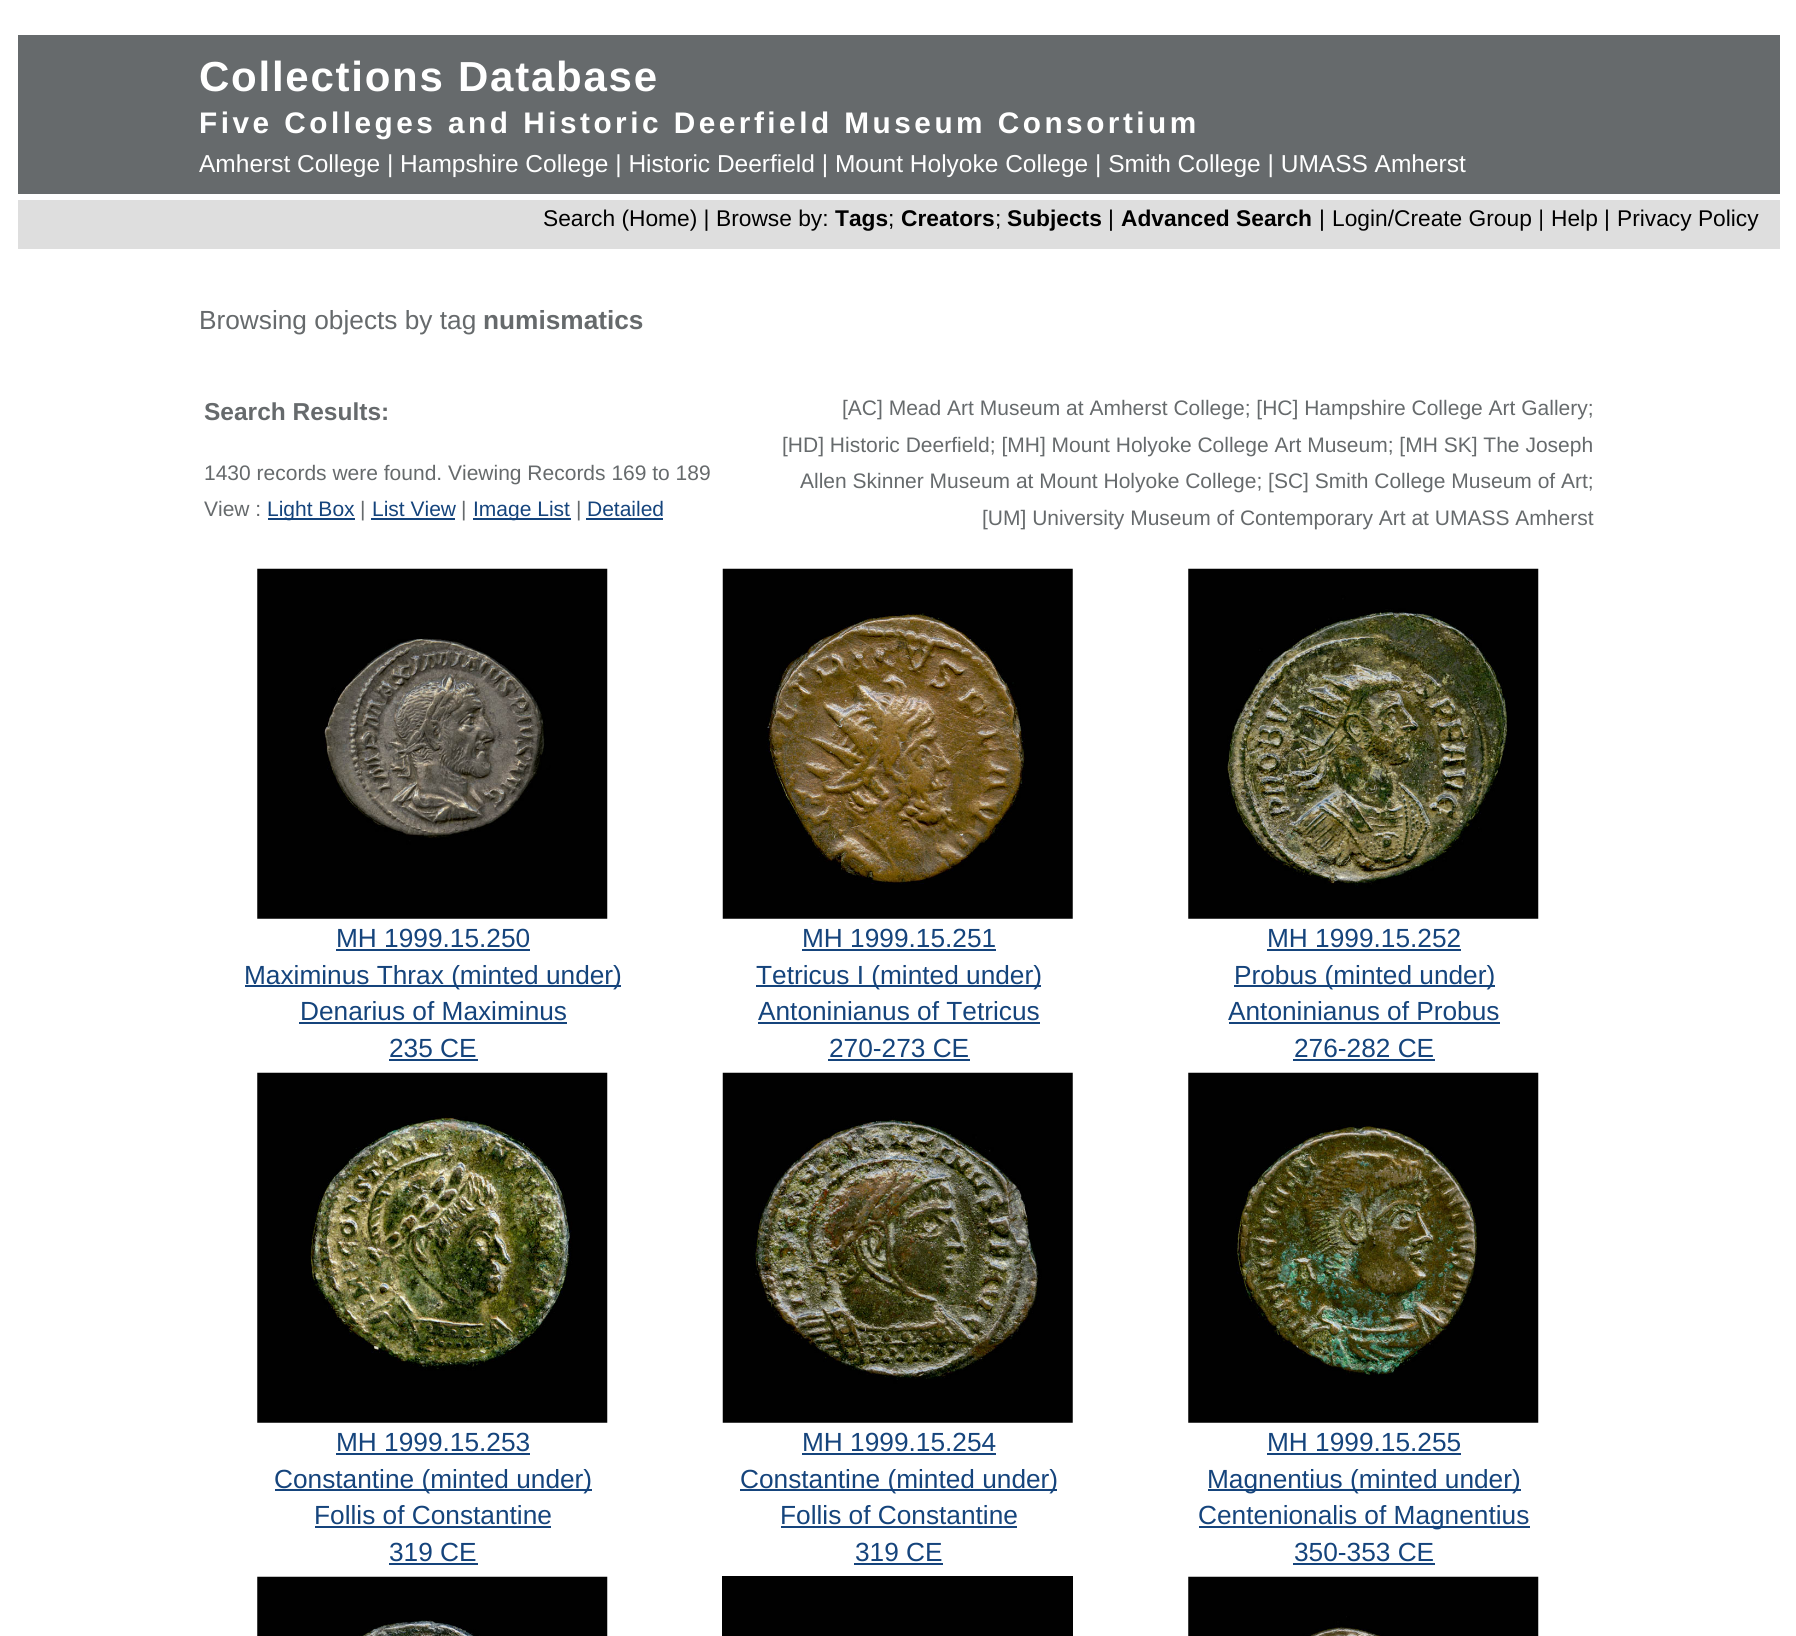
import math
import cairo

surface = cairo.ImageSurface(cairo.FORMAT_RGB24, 1796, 1636)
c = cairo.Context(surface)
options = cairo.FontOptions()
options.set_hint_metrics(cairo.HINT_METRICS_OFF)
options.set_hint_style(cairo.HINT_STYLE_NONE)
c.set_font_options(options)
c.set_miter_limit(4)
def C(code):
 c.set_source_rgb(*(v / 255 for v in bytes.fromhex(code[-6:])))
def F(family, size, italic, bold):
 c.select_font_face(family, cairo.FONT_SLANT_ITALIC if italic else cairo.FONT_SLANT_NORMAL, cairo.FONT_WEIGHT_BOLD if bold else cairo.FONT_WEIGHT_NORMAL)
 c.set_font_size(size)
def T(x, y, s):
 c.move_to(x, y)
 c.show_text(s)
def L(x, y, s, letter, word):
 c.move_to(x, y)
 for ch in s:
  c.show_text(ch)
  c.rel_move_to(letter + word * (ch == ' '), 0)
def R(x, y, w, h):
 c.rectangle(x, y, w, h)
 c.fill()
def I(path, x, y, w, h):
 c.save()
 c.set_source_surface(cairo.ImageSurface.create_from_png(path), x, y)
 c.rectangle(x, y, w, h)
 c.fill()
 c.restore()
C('ffffff')
c.paint()
C('666a6c')
R(18,35,1762,159)
F('Liberation Sans',42,0,1)
C('ffffff')
L(199,91,'Collections Database',1.75,0)
F('Liberation Sans',29.75,0,1)
L(199,133,'Five Colleges and Historic Deerfield Museum Consortium',3.5,0)
F('Liberation Sans',24.5,0,0)
T(199,172,'Amherst College | Hampshire College | Historic Deerfield | Mount Holyoke College | Smith College | UMASS Amherst')
C('dedede')
R(18,200,1762,49)
F('Liberation Sans',22.75,0,0)
C('000000')
T(543,226,'Search (Home) |')
T(716,226,'Browse by:')
F('Liberation Sans',22.75,0,1)
T(835,226,'Tags')
F('Liberation Sans',22.75,0,0)
T(888,226,';')
F('Liberation Sans',22.75,0,1)
T(901,226,'Creators')
F('Liberation Sans',22.75,0,0)
T(995,226,';')
F('Liberation Sans',22.75,0,1)
T(1007,226,'Subjects')
F('Liberation Sans',22.75,0,0)
T(1108,226,'|')
F('Liberation Sans',22.75,0,1)
T(1121,226,'Advanced Search')
F('Liberation Sans',22.75,0,0)
T(1319,226,'|')
T(1332,226,'Login/Create Group |')
T(1551,226,'Help |')
T(1617,226,'Privacy Policy')
F('Liberation Sans',26.25,0,0)
C('666a6c')
T(199,329,'Browsing objects by tag')
F('Liberation Sans',26.25,0,1)
T(483,329,'numismatics')
F('Liberation Sans',24.5,0,1)
T(204,420,'Search Results:')
F('Liberation Sans',21,0,0)
T(204,480,'1430 records were found. Viewing Records 169 to 189')
T(204,516,'View :')
C('15447c')
R(268,518,87,2)
T(267,516,'Light Box')
C('666a6c')
T(360,516,'|')
C('15447c')
T(372,516,'List View')
R(371,518,84,2)
C('666a6c')
T(461,516,'|')
C('15447c')
R(473,518,98,2)
T(473,516,'Image List')
C('666a6c')
T(576,516,'|')
C('15447c')
T(587,516,'Detailed')
R(586,518,77,2)
C('666a6c')
T(842,415,'[AC] Mead Art Museum at Amherst College; [HC] Hampshire College Art Gallery;')
T(782,452,'[HD] Historic Deerfield; [MH] Mount Holyoke College Art Museum; [MH SK] The Joseph')
T(800,488,'Allen Skinner Museum at Mount Holyoke College; [SC] Smith College Museum of Art;')
T(982,525,'[UM] University Museum of Contemporary Art at UMASS Amherst')
I('1.png',257,568,351,351)
F('Liberation Sans',26.25,0,0)
C('15447c')
T(336,947,'MH 1999.15.250')
R(336,949,194,2)
R(245,985,376,2)
T(244,984,'Maximinus Thrax (minted under)')
T(300,1020,'Denarius of Maximinus')
R(299,1022,268,2)
T(389,1057,'235 CE')
R(389,1059,89,2)
I('2.png',722,568,351,351)
T(802,947,'MH 1999.15.251')
R(802,949,194,2)
R(756,985,285,2)
T(756,984,'Tetricus I (minted under)')
T(758,1020,'Antoninianus of Tetricus')
R(758,1022,282,2)
T(829,1057,'270-273 CE')
R(828,1059,142,2)
I('3.png',1188,568,351,351)
T(1267,947,'MH 1999.15.252')
R(1267,949,194,2)
R(1234,985,261,2)
T(1234,984,'Probus (minted under)')
T(1228,1020,'Antoninianus of Probus')
R(1229,1022,271,2)
T(1294,1057,'276-282 CE')
R(1293,1059,142,2)
I('4.png',257,1072,351,351)
T(336,1451,'MH 1999.15.253')
R(336,1453,194,2)
R(275,1489,317,2)
T(274,1488,'Constantine (minted under)')
T(314,1524,'Follis of Constantine')
R(315,1526,236,2)
T(389,1561,'319 CE')
R(389,1563,89,2)
I('5.png',722,1072,351,351)
T(802,1451,'MH 1999.15.254')
R(802,1453,194,2)
R(740,1489,317,2)
T(740,1488,'Constantine (minted under)')
T(780,1524,'Follis of Constantine')
R(781,1526,236,2)
T(855,1561,'319 CE')
R(854,1563,89,2)
I('6.png',1188,1072,351,351)
T(1267,1451,'MH 1999.15.255')
R(1267,1453,194,2)
R(1208,1489,313,2)
T(1207,1488,'Magnentius (minted under)')
R(1199,1526,331,2)
T(1198,1524,'Centenionalis of Magnentius')
T(1294,1561,'350-353 CE')
R(1293,1563,142,2)
I('7.png',257,1576,351,60)
C('010101')
R(722,1576,351,60)
I('8.png',1188,1576,351,60)
surface.write_to_png('o.png')
